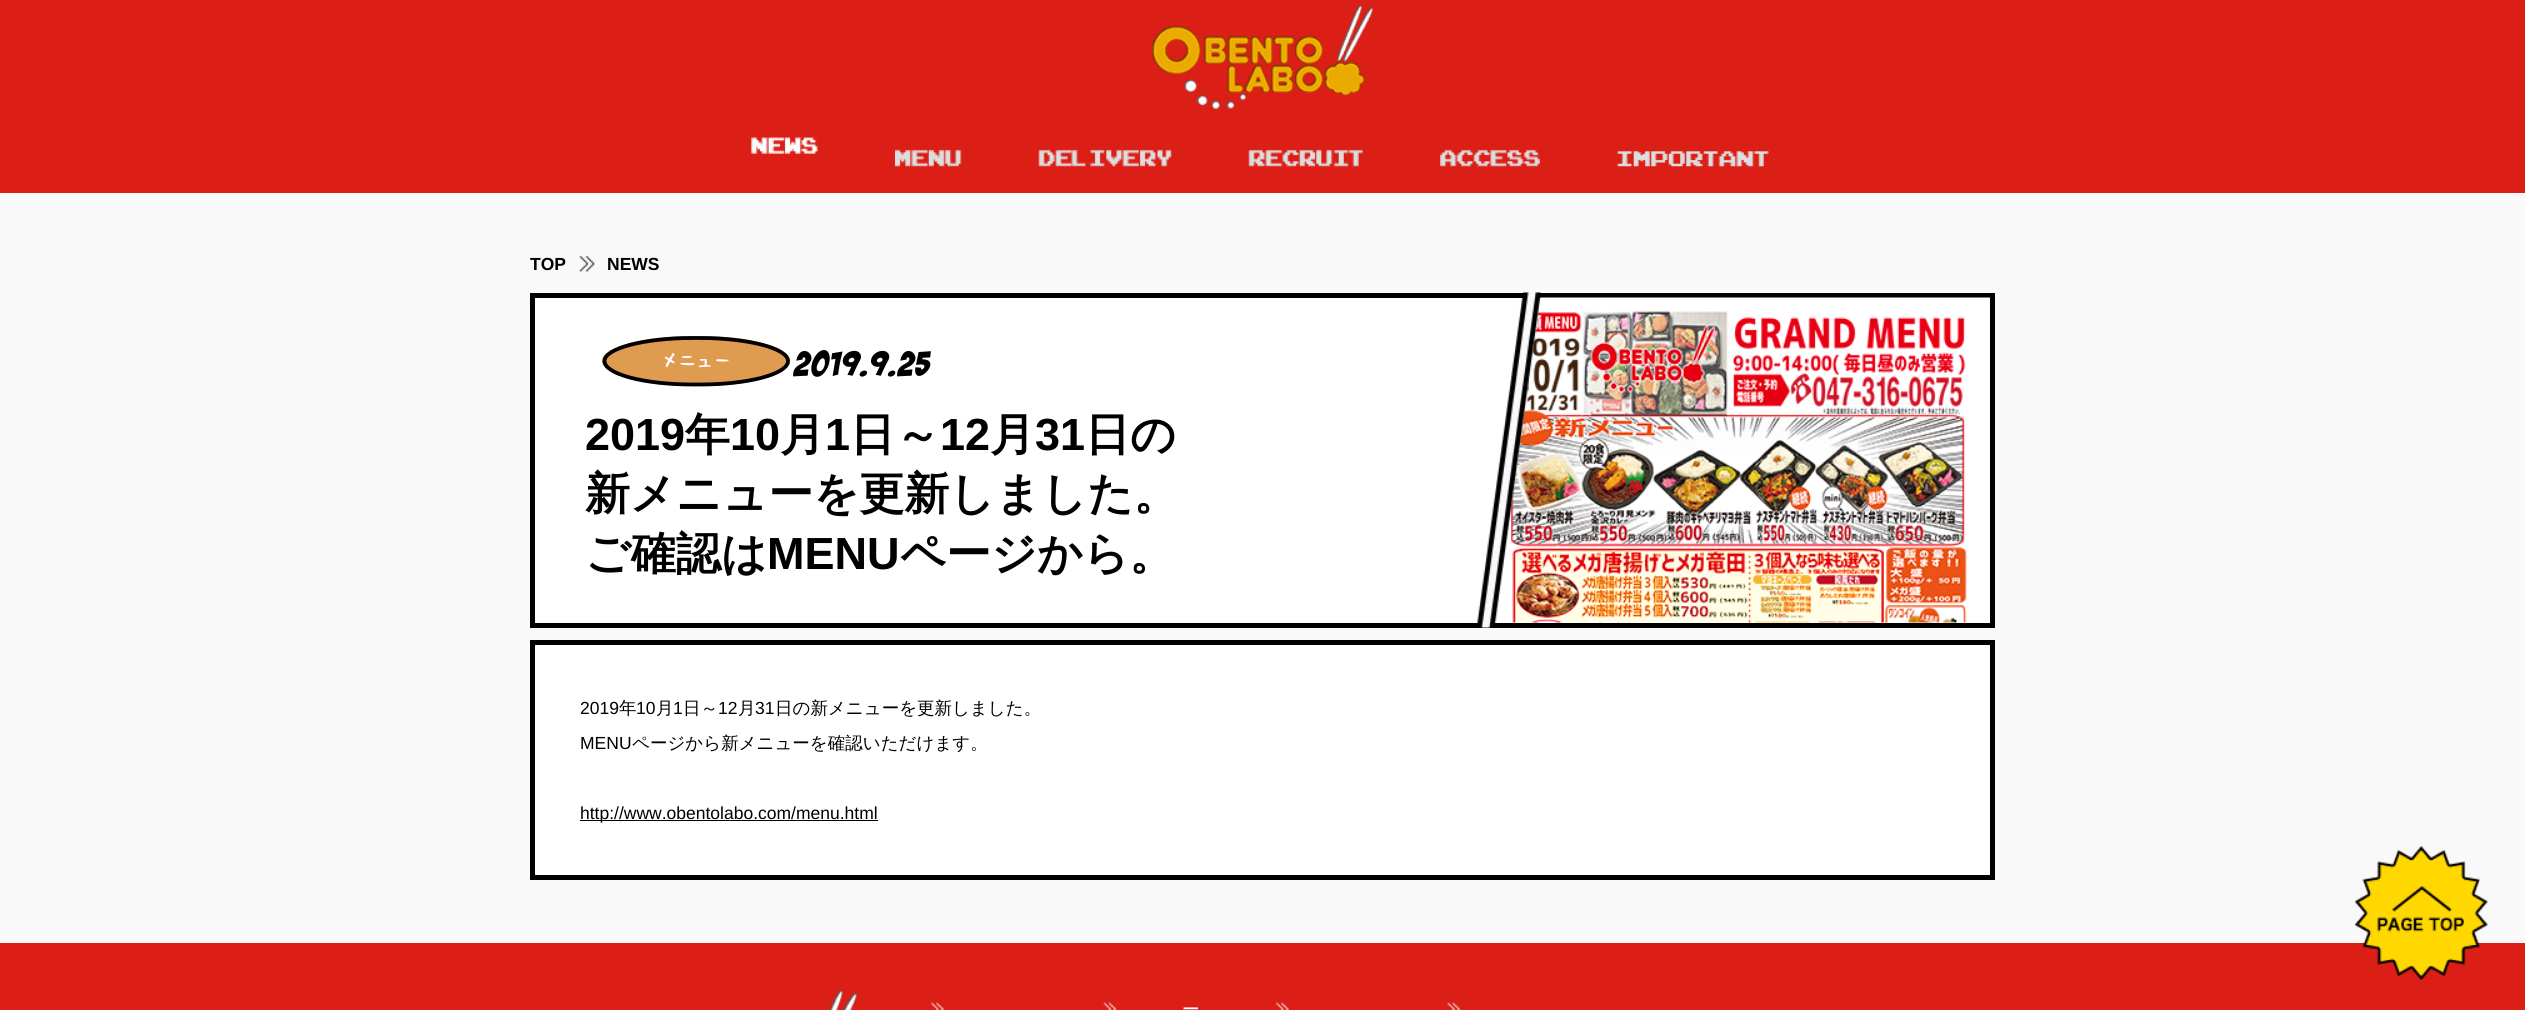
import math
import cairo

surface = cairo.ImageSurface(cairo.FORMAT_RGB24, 2525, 1010)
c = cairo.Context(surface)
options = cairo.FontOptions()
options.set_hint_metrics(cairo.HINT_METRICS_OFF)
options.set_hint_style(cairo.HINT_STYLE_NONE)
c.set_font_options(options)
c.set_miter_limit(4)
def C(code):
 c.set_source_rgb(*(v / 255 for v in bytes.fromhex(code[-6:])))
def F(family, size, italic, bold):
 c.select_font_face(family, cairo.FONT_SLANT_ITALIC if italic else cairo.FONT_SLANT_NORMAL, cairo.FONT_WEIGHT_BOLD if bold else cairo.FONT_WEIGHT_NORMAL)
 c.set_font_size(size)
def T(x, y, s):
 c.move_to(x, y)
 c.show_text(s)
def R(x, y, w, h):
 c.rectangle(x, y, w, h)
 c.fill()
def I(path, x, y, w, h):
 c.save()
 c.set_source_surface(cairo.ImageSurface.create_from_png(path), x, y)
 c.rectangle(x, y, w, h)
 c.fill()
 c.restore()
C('f9f9f9')
c.paint()
C('db1e16')
R(0,0,2525,193)
I('1.png',1152,5,221,104)
I('2.png',751,137,67,17)
I('3.png',895,149,67,18)
I('4.png',1038,149,134,18)
I('5.png',1248,149,115,18)
I('6.png',1440,149,100,18)
I('7.png',1617,151,152,16)
F('Liberation Sans',17.5,0,1)
C('000000')
T(530,270,'TOP')
I('8.png',579,255,16,18)
T(607,270,'NEWS')
C('ffffff')
c.rectangle(532.5,295.5,1460,330)
c.fill_preserve()
C('000000')
c.set_line_width(5)
c.stroke()
C('df9c50')
c.new_path()
c.move_to(692,336)
c.line_to(700,336)
c.curve_to(750,336,790,347,790,361)
c.curve_to(790,375,750,386,700,386)
c.line_to(692,386)
c.curve_to(643,386,602,375,602,361)
c.curve_to(602,347,643,336,692,336)
c.close_path()
c.fill()
c.new_path()
c.move_to(692.5,338)
c.line_to(700,338)
c.curve_to(748.5,338,788,348.5,788,361)
c.curve_to(788,374,748.5,384.5,700,384.5)
c.line_to(692.5,384.5)
c.curve_to(644,384.5,604.5,374,604.5,361)
c.curve_to(604.5,348.5,644,338,692.5,338)
c.close_path()
C('000000')
c.set_line_width(3.8)
c.stroke()
F('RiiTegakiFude',17.5,0,0)
C('ffffff')
T(661,367,'メニュー')
F('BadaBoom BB',35,0,0)
C('000000')
T(793,376,'2019.9.25')
F('Liberation Sans',45,0,1)
T(585,450,'2019')
F('WenQuanYi Zen Hei',45,0,1)
T(685,450,'年')
F('Liberation Sans',45,0,1)
T(730,450,'10')
F('WenQuanYi Zen Hei',45,0,1)
T(780,450,'月')
F('Liberation Sans',45,0,1)
T(825,450,'1')
F('WenQuanYi Zen Hei',45,0,1)
T(850,450,'日～')
F('Liberation Sans',45,0,1)
T(940,450,'12')
F('WenQuanYi Zen Hei',45,0,1)
T(990,450,'月')
F('Liberation Sans',45,0,1)
T(1035,450,'31')
F('WenQuanYi Zen Hei',45,0,1)
T(1085,450,'日の')
T(585,509,'新メニューを更新しました。')
T(585,569,'ご確認は')
F('Liberation Sans',45,0,1)
T(767,569,'MENU')
F('WenQuanYi Zen Hei',45,0,1)
T(900,569,'ページから。')
I('10.png',1510,297,480,326)
I('9.png',1477,292,65,336)
C('ffffff')
c.rectangle(532.5,642.5,1460,235)
c.fill_preserve()
C('000000')
c.set_line_width(5)
c.stroke()
F('Liberation Sans',17.5,0,0)
T(580,714,'2019')
F('WenQuanYi Zen Hei Medium',17.5,0,0)
T(619,714,'年')
F('Liberation Sans',17.5,0,0)
T(636,714,'10')
F('WenQuanYi Zen Hei Medium',17.5,0,0)
T(656,714,'月')
F('Liberation Sans',17.5,0,0)
T(673,714,'1')
F('WenQuanYi Zen Hei Medium',17.5,0,0)
T(683,714,'日～')
F('Liberation Sans',17.5,0,0)
T(718,714,'12')
F('WenQuanYi Zen Hei Medium',17.5,0,0)
T(738,714,'月')
F('Liberation Sans',17.5,0,0)
T(755,714,'31')
F('WenQuanYi Zen Hei Medium',17.5,0,0)
T(775,714,'日の新メニューを更新しました。')
F('Liberation Sans',17.5,0,0)
T(580,749,'MENU')
F('WenQuanYi Zen Hei Medium',17.5,0,0)
T(632,749,'ページから新メニューを確認いただけます。')
R(580,820,298,1)
F('Liberation Sans',17.5,0,0)
T(580,819,'http://www.obentolabo.com/menu.html')
C('db1e16')
R(0,943,2525,67)
I('11.png',2355,846,133,134)
I('12.png',829,990,28,20)
I('13.png',931,1002,13,8)
I('14.png',1103,1002,14,8)
F('WenQuanYi Zen Hei Medium',17.5,0,0)
C('ffffff')
T(1182,1015,'ー')
I('13.png',1276,1002,13,8)
I('15.png',1447,1002,14,8)
surface.write_to_png('o.png')
